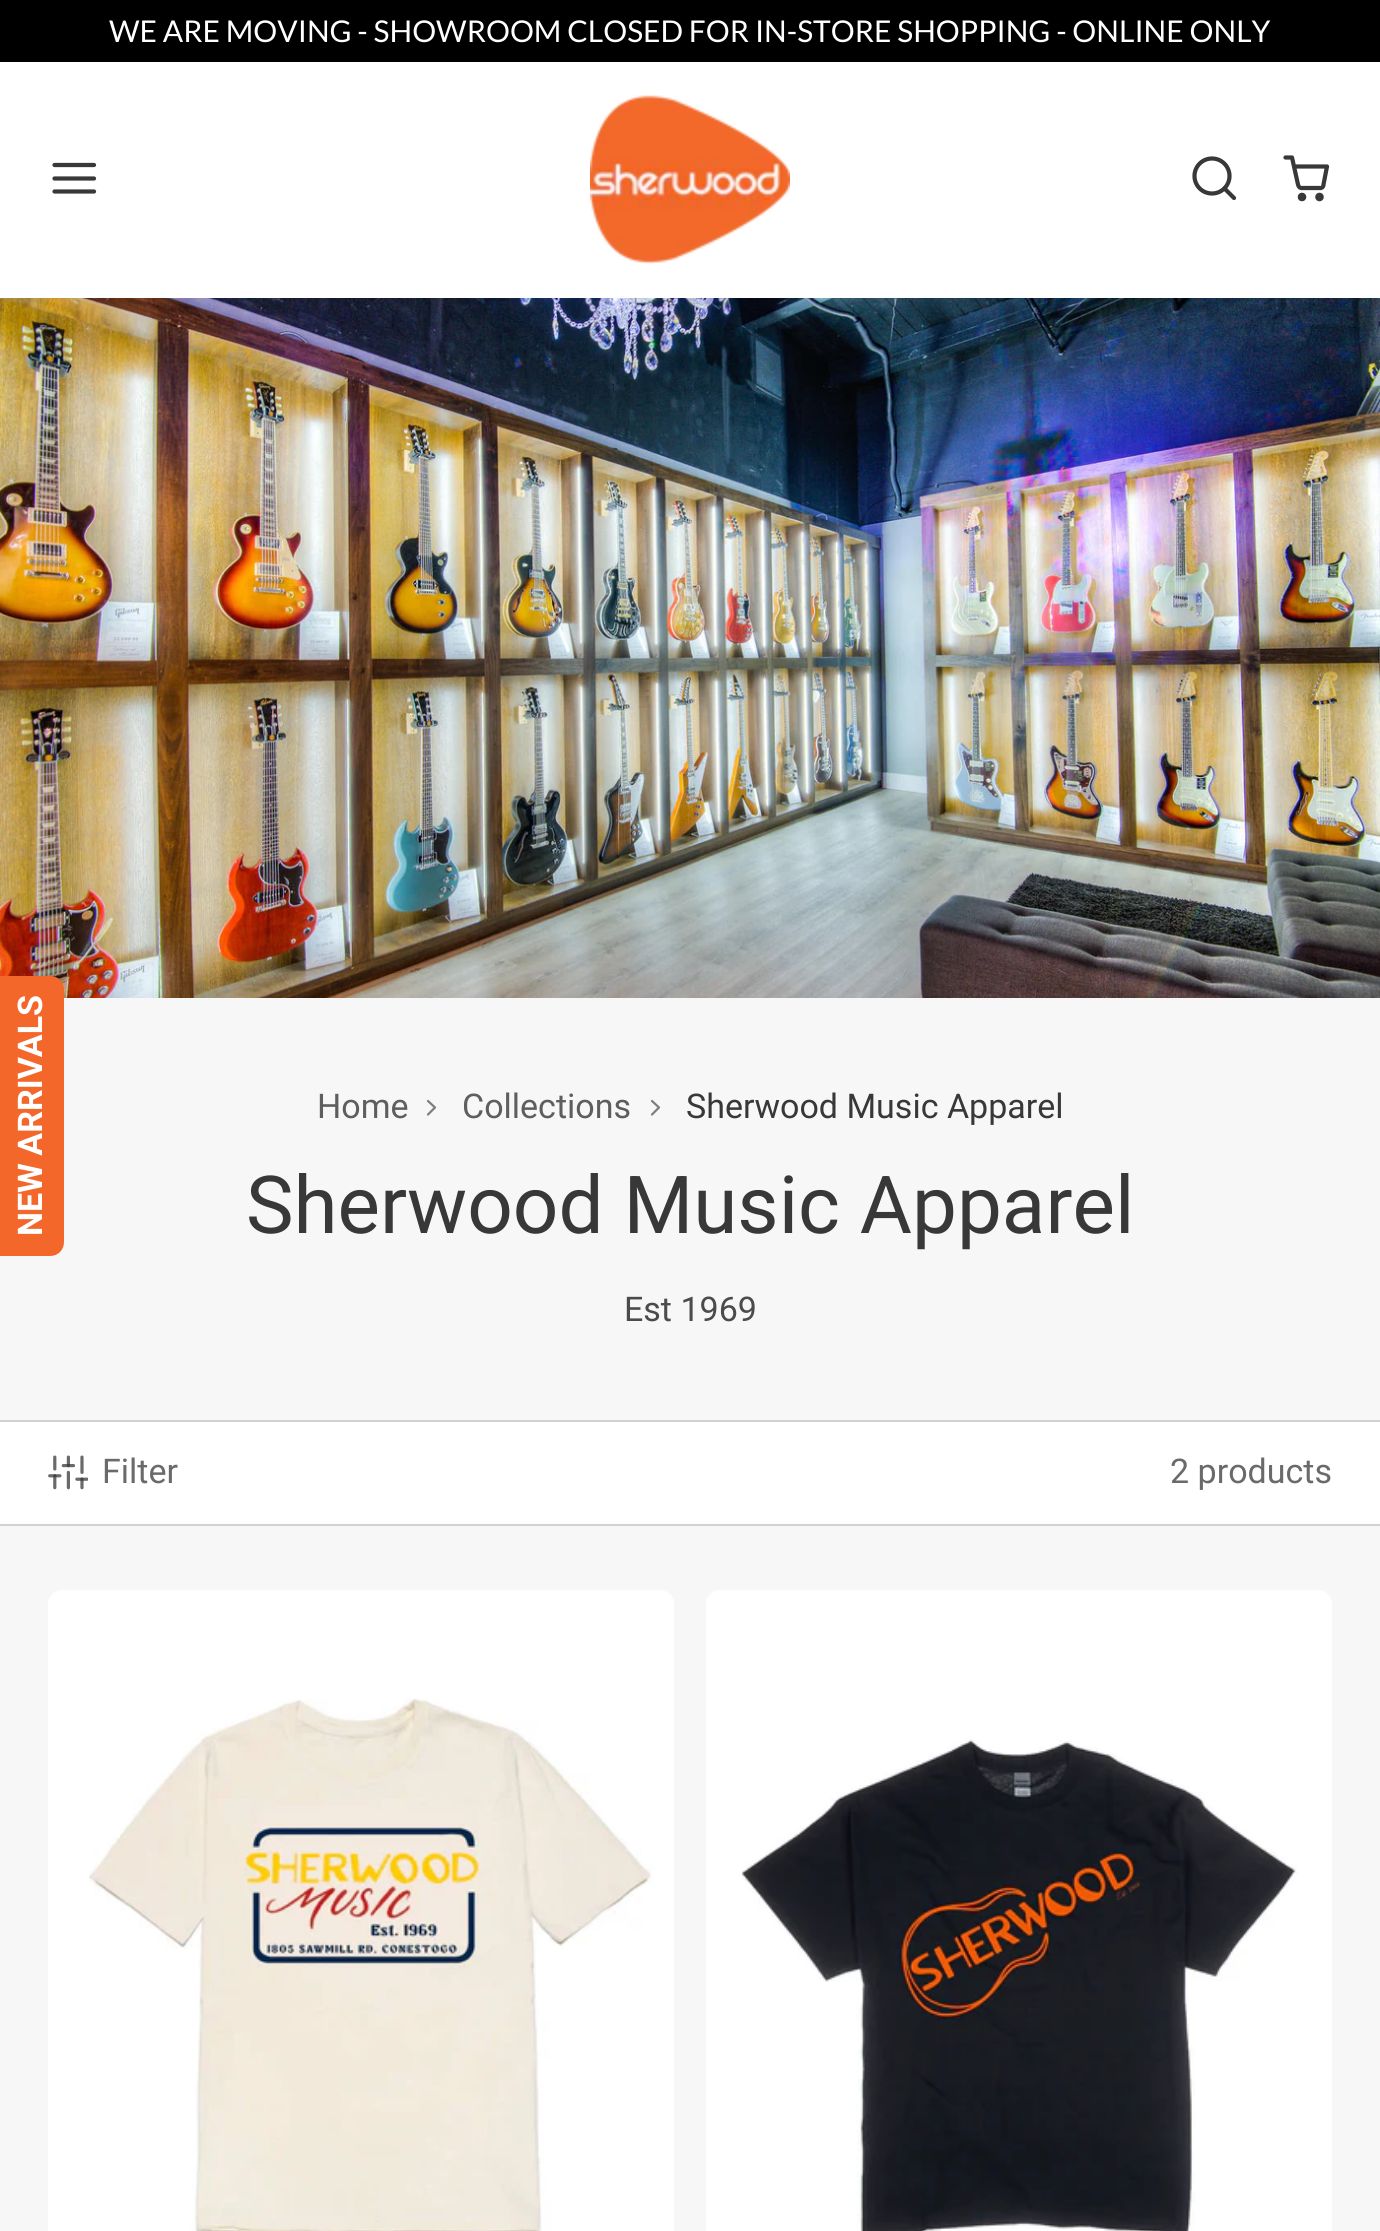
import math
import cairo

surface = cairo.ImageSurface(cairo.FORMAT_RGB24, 1380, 2231)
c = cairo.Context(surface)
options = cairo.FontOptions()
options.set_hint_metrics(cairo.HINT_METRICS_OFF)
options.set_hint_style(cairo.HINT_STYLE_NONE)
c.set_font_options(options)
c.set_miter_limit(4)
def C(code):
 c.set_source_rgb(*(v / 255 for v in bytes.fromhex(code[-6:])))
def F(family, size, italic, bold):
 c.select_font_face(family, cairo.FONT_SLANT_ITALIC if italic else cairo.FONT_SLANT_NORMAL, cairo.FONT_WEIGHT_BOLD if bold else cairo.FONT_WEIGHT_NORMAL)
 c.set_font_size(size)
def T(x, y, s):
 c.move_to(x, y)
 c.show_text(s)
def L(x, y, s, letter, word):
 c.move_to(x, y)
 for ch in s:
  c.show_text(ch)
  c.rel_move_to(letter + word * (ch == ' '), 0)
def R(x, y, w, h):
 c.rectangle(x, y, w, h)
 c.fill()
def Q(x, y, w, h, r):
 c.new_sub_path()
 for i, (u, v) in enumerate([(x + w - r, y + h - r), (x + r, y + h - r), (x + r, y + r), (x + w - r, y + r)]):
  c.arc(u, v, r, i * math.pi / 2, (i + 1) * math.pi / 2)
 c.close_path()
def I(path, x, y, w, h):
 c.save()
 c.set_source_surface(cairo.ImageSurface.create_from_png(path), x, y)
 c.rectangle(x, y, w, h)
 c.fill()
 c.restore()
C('f7f7f7')
c.paint()
C('000000')
R(0,0,1380,62)
F('Lato',30,0,0)
C('ffffff')
T(109,42,'WE ARE MOVING - SHOWROOM CLOSED FOR IN-STORE SHOPPING - ONLINE ONLY')
R(0,62,1380,236)
c.new_path()
c.move_to(54.5,178.5)
c.line_to(94,178.5)
c.move_to(54.5,165)
c.line_to(94,165)
c.move_to(54.5,191.5)
c.line_to(94,191.5)
C('383838')
c.set_line_width(4.2)
c.set_line_cap(cairo.LINE_CAP_ROUND)
c.set_line_join(cairo.LINE_JOIN_ROUND)
c.stroke()
I('1.png',590,95,200,170)
c.arc(1212,176,17.5,0,2 * math.pi)
c.set_line_cap(cairo.LINE_CAP_BUTT)
c.set_line_join(cairo.LINE_JOIN_MITER)
c.stroke()
c.new_path()
c.move_to(1234,198)
c.line_to(1224.5,188.5)
c.set_line_cap(cairo.LINE_CAP_ROUND)
c.set_line_join(cairo.LINE_JOIN_ROUND)
c.stroke()
c.arc(1302,197,2.2,0,2 * math.pi)
c.set_line_cap(cairo.LINE_CAP_BUTT)
c.set_line_join(cairo.LINE_JOIN_MITER)
c.stroke()
c.arc(1319.5,197,2.2,0,2 * math.pi)
c.stroke()
c.new_path()
c.move_to(1285.5,157.5)
c.line_to(1292,157.5)
c.line_to(1298,184.5)
c.curve_to(1298.5,187,1300.5,188.5,1302.5,188)
c.line_to(1319.5,188)
c.curve_to(1321.5,188.5,1323.5,187,1323.5,184.5)
c.line_to(1327,166.5)
c.line_to(1295.5,166.5)
c.set_line_cap(cairo.LINE_CAP_ROUND)
c.set_line_join(cairo.LINE_JOIN_ROUND)
c.stroke()
I('2.png',0,298,1380,700)
C('f3672b')
c.new_path()
c.move_to(50,1256)
c.line_to(0,1256)
c.line_to(0,976)
c.line_to(50,976)
c.curve_to(58,976,64,982,64,990)
c.line_to(64,1242)
c.curve_to(64,1250,58,1256,50,1256)
c.close_path()
c.fill()
F('Roboto',34,0,1)
C('ffffff')
c.save()
c.translate(42,1236)
c.rotate(-90 * math.pi / 180)
L(0,0,'NEW ARRIVALS',0,-1)
c.restore()
F('Roboto',34,0,0)
C('5e5e5e')
T(317,1118,'Home')
c.new_path()
c.move_to(428,1114.5)
c.line_to(435,1107.5)
c.line_to(428,1101)
C('7d7d7d')
c.set_line_width(2.2)
c.stroke()
C('5e5e5e')
T(462,1118,'Collections')
c.new_path()
c.move_to(652,1114.5)
c.line_to(659,1107.5)
c.line_to(652,1101)
C('7d7d7d')
c.stroke()
C('383838')
T(686,1118,'Sherwood Music Apparel')
F('Roboto',80,0,0)
T(246,1233,'Sherwood Music Apparel')
F('Roboto',34,0,0)
C('4b4b4b')
T(624,1321,'Est 1969')
C('ffffff')
R(0,1422,1380,102)
C('d1d1d1')
R(0,1420,1380,2)
R(0,1524,1380,2)
I('3.png',48,1455,40,35)
C('6a6a6a')
T(102,1483,'Filter')
T(1170,1483,'2 products')
C('ffffff')
Q(48,1590,626,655,14)
c.fill()
I('4.png',89,1698,565,533)
Q(706,1590,626,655,14)
c.fill()
I('5.png',742,1739,556,492)
surface.write_to_png('o.png')
